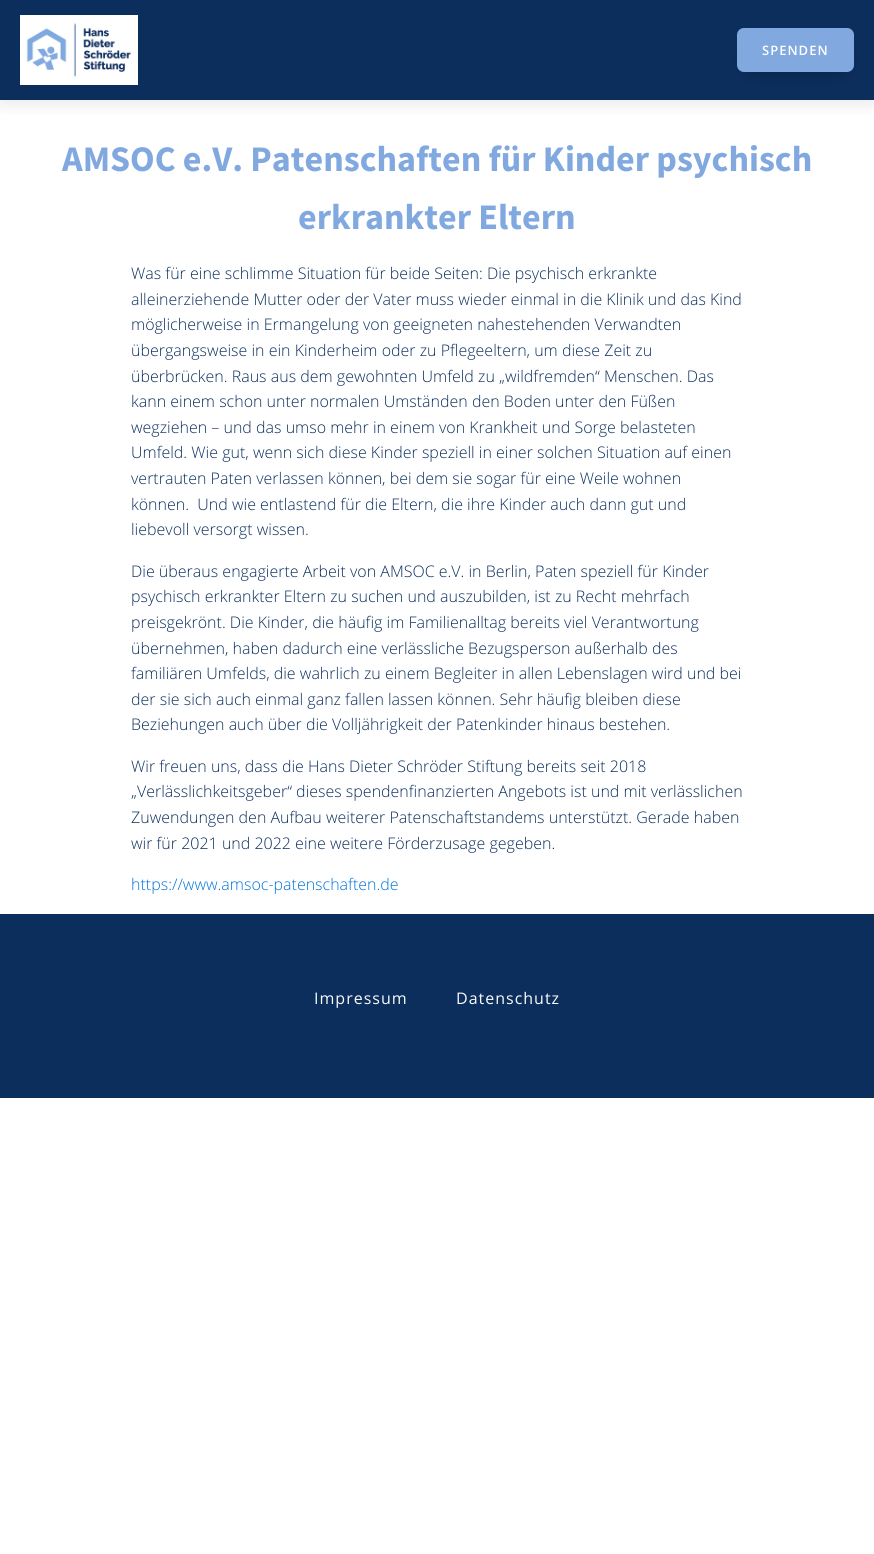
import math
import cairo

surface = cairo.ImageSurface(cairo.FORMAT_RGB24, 874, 1554)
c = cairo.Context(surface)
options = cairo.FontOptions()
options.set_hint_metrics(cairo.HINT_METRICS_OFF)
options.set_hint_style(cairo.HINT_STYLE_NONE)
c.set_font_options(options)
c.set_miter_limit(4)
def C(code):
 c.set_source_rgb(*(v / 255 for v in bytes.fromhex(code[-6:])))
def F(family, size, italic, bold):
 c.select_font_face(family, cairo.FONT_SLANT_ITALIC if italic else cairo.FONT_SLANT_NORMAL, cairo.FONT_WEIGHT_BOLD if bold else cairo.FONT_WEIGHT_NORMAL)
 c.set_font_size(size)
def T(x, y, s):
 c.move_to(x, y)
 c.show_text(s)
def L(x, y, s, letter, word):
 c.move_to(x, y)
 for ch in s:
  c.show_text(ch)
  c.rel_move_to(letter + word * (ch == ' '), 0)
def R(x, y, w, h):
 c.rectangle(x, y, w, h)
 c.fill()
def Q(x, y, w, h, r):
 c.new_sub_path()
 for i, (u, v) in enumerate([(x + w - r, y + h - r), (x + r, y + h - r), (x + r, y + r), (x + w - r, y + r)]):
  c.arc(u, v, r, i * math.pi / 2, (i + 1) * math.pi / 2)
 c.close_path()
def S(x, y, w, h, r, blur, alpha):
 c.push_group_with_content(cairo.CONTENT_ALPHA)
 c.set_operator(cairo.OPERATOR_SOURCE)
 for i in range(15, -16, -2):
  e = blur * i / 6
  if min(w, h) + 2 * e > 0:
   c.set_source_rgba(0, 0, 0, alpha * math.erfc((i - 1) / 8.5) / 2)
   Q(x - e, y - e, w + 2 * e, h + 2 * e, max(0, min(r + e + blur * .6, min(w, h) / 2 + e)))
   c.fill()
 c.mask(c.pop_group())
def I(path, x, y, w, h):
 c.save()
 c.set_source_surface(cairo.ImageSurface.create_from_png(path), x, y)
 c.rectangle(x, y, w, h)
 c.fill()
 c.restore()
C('ffffff')
c.paint()
C('000000')
S(0,5,874,100,0,7.5,.08)
C('0c2e5d')
R(0,0,874,100)
I('1.png',20,15,118,70)
C('000000')
S(752,53,87,14,0,10,.5)
C('81a9e0')
Q(737,28,117,44,7)
c.fill()
F('Open Sans SemiBold',13,0,0)
C('ffffff')
L(762,55,'SPENDEN',1,0)
F('Source Sans Pro',36,0,1)
C('81a9e0')
T(62,171,'AMSOC e.V. Patenschaften für Kinder psychisch')
T(298,229,'erkrankter Eltern')
F('Open Sans Light',16,0,0)
C('0c2e5d')
T(131,279,'Was für eine schlimme Situation für beide Seiten: Die psychisch erkrankte')
T(131,305,'alleinerziehende Mutter oder der Vater muss wieder einmal in die Klinik und das Kind')
T(131,330,'möglicherweise in Ermangelung von geeigneten nahestehenden Verwandten')
T(131,356,'übergangsweise in ein Kinderheim oder zu Pflegeeltern, um diese Zeit zu')
T(131,382,'überbrücken. Raus aus dem gewohnten Umfeld zu „wildfremden“ Menschen. Das')
T(131,407,'kann einem schon unter normalen Umständen den Boden unter den Füßen')
T(131,433,'wegziehen – und das umso mehr in einem von Krankheit und Sorge belasteten')
T(131,458,'Umfeld. Wie gut, wenn sich diese Kinder speziell in einer solchen Situation auf einen')
T(131,484,'vertrauten Paten verlassen können, bei dem sie sogar für eine Weile wohnen')
T(131,510,'können.  Und wie entlastend für die Eltern, die ihre Kinder auch dann gut und')
T(131,535,'liebevoll versorgt wissen.')
T(131,577,'Die überaus engagierte Arbeit von AMSOC e.V. in Berlin, Paten speziell für Kinder')
T(131,602,'psychisch erkrankter Eltern zu suchen und auszubilden, ist zu Recht mehrfach')
T(131,628,'preisgekrönt. Die Kinder, die häufig im Familienalltag bereits viel Verantwortung')
T(131,654,'übernehmen, haben dadurch eine verlässliche Bezugsperson außerhalb des')
T(131,679,'familiären Umfelds, die wahrlich zu einem Begleiter in allen Lebenslagen wird und bei')
T(131,705,'der sie sich auch einmal ganz fallen lassen können. Sehr häufig bleiben diese')
T(131,730,'Beziehungen auch über die Volljährigkeit der Patenkinder hinaus bestehen.')
T(131,772,'Wir freuen uns, dass die Hans Dieter Schröder Stiftung bereits seit 2018')
T(131,797,'„Verlässlichkeitsgeber“ dieses spendenfinanzierten Angebots ist und mit verlässlichen')
T(131,823,'Zuwendungen den Aufbau weiterer Patenschaftstandems unterstützt. Gerade haben')
T(131,849,'wir für 2021 und 2022 eine weitere Förderzusage gegeben.')
C('0074db')
T(131,890,'https://www.amsoc-patenschaften.de')
C('0c2e5d')
R(0,914,874,184)
F('Open Sans',16,0,0)
C('f9f9f9')
L(314,1004,'Impressum',1,0)
L(456,1004,'Datenschutz',1,0)
surface.write_to_png('o.png')
